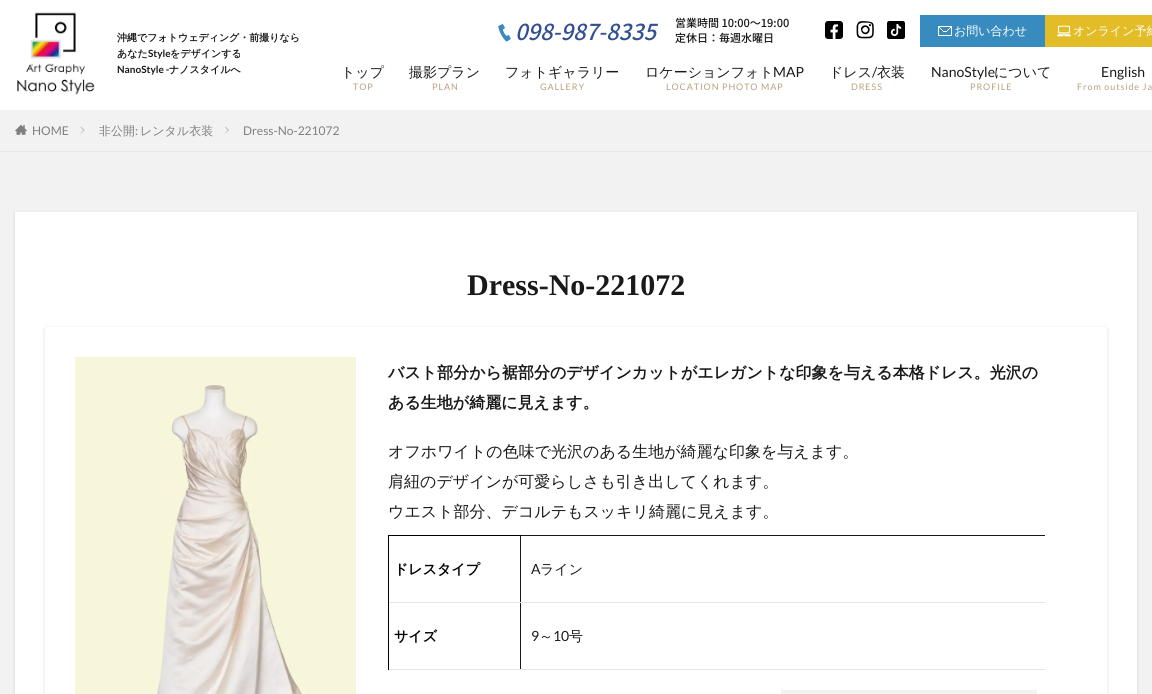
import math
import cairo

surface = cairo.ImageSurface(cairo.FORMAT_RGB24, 1152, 694)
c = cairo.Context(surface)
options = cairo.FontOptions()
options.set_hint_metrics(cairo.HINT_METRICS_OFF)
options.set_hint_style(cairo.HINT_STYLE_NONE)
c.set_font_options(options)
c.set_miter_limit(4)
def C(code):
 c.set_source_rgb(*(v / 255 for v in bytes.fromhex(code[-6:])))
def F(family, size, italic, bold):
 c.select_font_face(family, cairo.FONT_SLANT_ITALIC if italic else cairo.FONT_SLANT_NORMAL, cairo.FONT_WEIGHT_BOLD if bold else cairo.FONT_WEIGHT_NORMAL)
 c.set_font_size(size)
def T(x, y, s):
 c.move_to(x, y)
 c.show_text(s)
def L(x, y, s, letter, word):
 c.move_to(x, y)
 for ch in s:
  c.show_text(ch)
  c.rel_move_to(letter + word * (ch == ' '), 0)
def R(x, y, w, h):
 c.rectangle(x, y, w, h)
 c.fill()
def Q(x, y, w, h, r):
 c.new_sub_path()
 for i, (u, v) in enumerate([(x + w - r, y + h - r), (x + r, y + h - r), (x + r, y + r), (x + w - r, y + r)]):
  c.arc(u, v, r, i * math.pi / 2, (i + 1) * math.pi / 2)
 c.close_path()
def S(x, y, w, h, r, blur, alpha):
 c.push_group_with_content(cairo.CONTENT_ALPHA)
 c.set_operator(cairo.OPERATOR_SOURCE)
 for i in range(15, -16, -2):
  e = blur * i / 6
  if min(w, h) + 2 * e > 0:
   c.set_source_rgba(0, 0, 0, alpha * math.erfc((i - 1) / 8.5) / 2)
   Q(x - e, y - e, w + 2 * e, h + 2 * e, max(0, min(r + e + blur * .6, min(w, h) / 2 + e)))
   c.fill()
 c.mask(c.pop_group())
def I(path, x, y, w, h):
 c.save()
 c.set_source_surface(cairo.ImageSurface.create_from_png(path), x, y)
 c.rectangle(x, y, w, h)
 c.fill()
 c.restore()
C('f2f2f2')
c.paint()
C('ffffff')
R(0,0,1152,110)
I('1.png',17,12,78,83)
F('WenQuanYi Zen Hei',10,0,1)
C('191919')
T(117,41,'沖縄でフォトウェディング・前撮りなら')
T(117,57,'あなた')
F('Lato',10,0,1)
T(148,57,'Style')
F('WenQuanYi Zen Hei',10,0,1)
T(170,57,'をデザインする')
F('Lato',10,0,1)
T(117,73,'NanoStyle -')
F('WenQuanYi Zen Hei',10,0,1)
T(169,73,'ナノスタイルへ')
I('2.png',498,24,13,18)
F('Noto Sans JP Medium',22,1,0)
C('335092')
T(515,40,'098-987-8335')
F('Noto Sans JP Medium',11,0,0)
C('191919')
T(675,27,'営業時間 10:00〜19:00')
T(675,42,'定休日：毎週水曜日')
I('3.png',825,21,18,18)
I('4.png',856,21,18,18)
I('5.png',887,21,18,18)
C('388bbf')
R(920,15,125,32)
I('6.png',938,26,14,10)
F('WenQuanYi Zen Hei Medium',12,0,0)
C('ffffff')
T(954,35,'お問い合わせ')
C('e2bd27')
R(1045,15,107,32)
I('7.png',1057,25,14,12)
C('ffffff')
T(1073,35,'オンライン予約')
F('WenQuanYi Zen Hei Medium',14,0,0)
C('191919')
T(341,77,'トップ')
F('Lato',9,0,0)
C('b6a081')
L(353,90,'TOP',.9,0)
F('WenQuanYi Zen Hei Medium',14,0,0)
C('191919')
T(409,77,'撮影プラン')
F('Lato',9,0,0)
C('b6a081')
L(432,90,'PLAN',.9,0)
F('WenQuanYi Zen Hei Medium',14,0,0)
C('191919')
T(505,77,'フォトギャラリー')
F('Lato',9,0,0)
C('b6a081')
L(540,90,'GALLERY',.9,0)
F('WenQuanYi Zen Hei Medium',14,0,0)
C('191919')
T(645,77,'ロケーションフォト')
F('Lato',14,0,0)
T(773,77,'MAP')
F('Lato',9,0,0)
C('b6a081')
L(666,90,'LOCATION PHOTO MAP',.9,0)
F('WenQuanYi Zen Hei Medium',14,0,0)
C('191919')
T(829,77,'ドレス')
F('Lato',14,0,0)
T(872,77,'/')
F('WenQuanYi Zen Hei Medium',14,0,0)
T(877,77,'衣装')
F('Lato',9,0,0)
C('b6a081')
L(851,90,'DRESS',.9,0)
F('Lato',14,0,0)
C('191919')
T(931,77,'NanoStyle')
F('WenQuanYi Zen Hei Medium',14,0,0)
T(994,77,'について')
F('Lato',9,0,0)
C('b6a081')
L(970,90,'PROFILE',.9,0)
F('Lato',14,0,0)
C('191919')
T(1101,77,'English')
F('Lato',9,0,0)
C('b6a081')
L(1077,90,'From outside Ja',.9,0)
C('e6e6e6')
R(0,151,1152,1)
I('8.png',15,124,12,11)
F('Lato',12,0,0)
C('7f7f7f')
T(32,135,'HOME')
C('bfbfbf')
c.new_path()
c.move_to(81,126.5)
c.line_to(84.5,130)
c.line_to(84,131)
c.line_to(80.5,127.5)
c.close_path()
c.fill()
c.new_path()
c.move_to(84,129.5)
c.line_to(84.5,130)
c.line_to(81,133.5)
c.line_to(80.5,133)
c.close_path()
c.fill()
F('WenQuanYi Zen Hei Medium',12,0,0)
C('7f7f7f')
T(99,135,'非公開')
F('Lato',12,0,0)
T(135,135,':')
F('WenQuanYi Zen Hei Medium',12,0,0)
T(140,135,'レンタル衣装')
C('bfbfbf')
c.new_path()
c.move_to(225.5,126.5)
c.line_to(229,130)
c.line_to(228.5,131)
c.line_to(225,127.5)
c.close_path()
c.fill()
c.new_path()
c.move_to(228.5,129.5)
c.line_to(229,130)
c.line_to(225.5,133.5)
c.line_to(225,133)
c.close_path()
c.fill()
F('Lato',12,0,0)
C('7f7f7f')
T(243,135,'Dress-No-221072')
C('000000')
S(15,213,1122,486,0,1.5,.15)
C('ffffff')
R(15,212,1122,482)
F('Liberation Serif',30,0,1)
C('191919')
T(467,295,'Dress-No-221072')
c.save()
c.set_fill_rule(cairo.FILL_RULE_EVEN_ODD)
c.new_path()
c.move_to(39,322)
c.line_to(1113,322)
c.line_to(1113,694)
c.line_to(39,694)
c.close_path()
c.move_to(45,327)
c.line_to(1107,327)
c.line_to(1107,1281)
c.line_to(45,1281)
c.close_path()
c.clip()
C('000000')
S(45,328,1062,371,0,1.5,.15)
c.restore()
I('9.png',75,357,281,337)
F('WenQuanYi Zen Hei',16,0,1)
T(388,378,'バスト部分から裾部分のデザインカットがエレガントな印象を与える本格ドレス。光沢の')
T(388,408,'ある生地が綺麗に見えます。')
F('WenQuanYi Zen Hei Medium',16,0,0)
T(388,457,'オフホワイトの色味で光沢のある生地が綺麗な印象を与えます。')
T(388,487,'肩紐のデザインが可愛らしさも引き出してくれます。')
T(388,517,'ウエスト部分、デコルテもスッキリ綺麗に見えます。')
R(520,535,525,1)
C('e5e5e5')
R(520,669,525,1)
C('191919')
R(520,602,1,68)
C('e5e5e5')
R(520,602,525,1)
C('191919')
R(520,535,1,68)
C('000000')
R(388,535,133,1)
C('e5e5e5')
R(388,669,133,1)
C('000000')
R(388,602,1,68)
C('e5e5e5')
R(388,602,133,1)
C('000000')
R(388,535,1,68)
F('WenQuanYi Zen Hei',14,0,1)
T(394,574,'ドレスタイプ')
F('Lato',14,0,0)
C('191919')
T(531,574,'A')
F('WenQuanYi Zen Hei Medium',14,0,0)
T(540,574,'ライン')
F('WenQuanYi Zen Hei',14,0,1)
C('000000')
T(394,641,'サイズ')
F('Lato',14,0,0)
C('191919')
T(531,641,'9')
F('WenQuanYi Zen Hei Medium',14,0,0)
T(539,641,'～')
F('Lato',14,0,0)
T(553,641,'10')
F('WenQuanYi Zen Hei Medium',14,0,0)
T(569,641,'号')
C('f2f2f2')
R(781,690,256,4)
surface.write_to_png('o.png')
